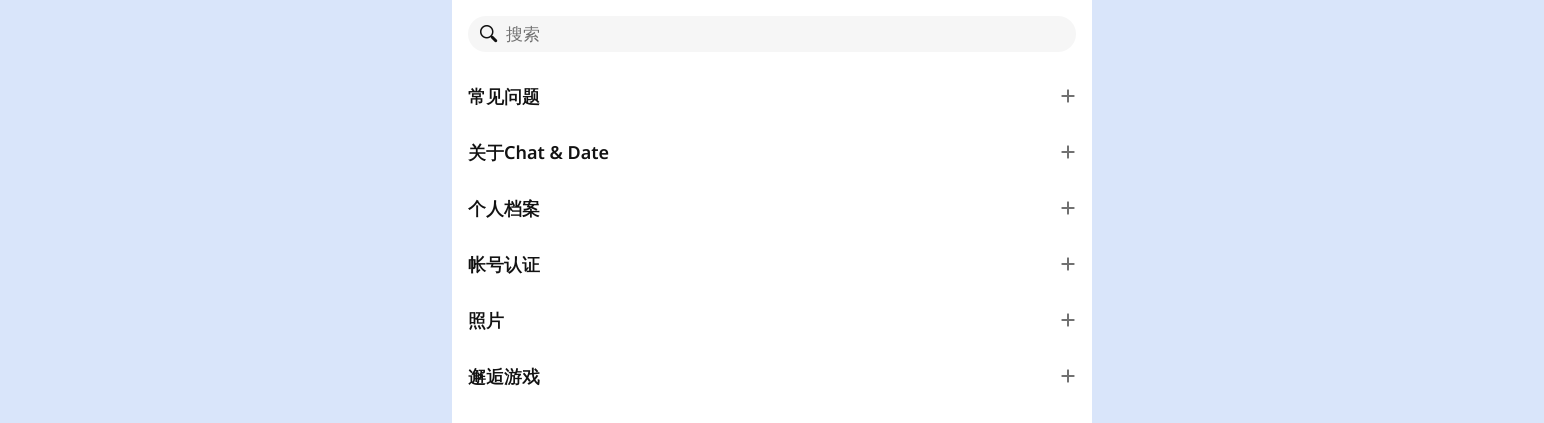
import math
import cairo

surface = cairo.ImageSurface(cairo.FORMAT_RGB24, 1544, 423)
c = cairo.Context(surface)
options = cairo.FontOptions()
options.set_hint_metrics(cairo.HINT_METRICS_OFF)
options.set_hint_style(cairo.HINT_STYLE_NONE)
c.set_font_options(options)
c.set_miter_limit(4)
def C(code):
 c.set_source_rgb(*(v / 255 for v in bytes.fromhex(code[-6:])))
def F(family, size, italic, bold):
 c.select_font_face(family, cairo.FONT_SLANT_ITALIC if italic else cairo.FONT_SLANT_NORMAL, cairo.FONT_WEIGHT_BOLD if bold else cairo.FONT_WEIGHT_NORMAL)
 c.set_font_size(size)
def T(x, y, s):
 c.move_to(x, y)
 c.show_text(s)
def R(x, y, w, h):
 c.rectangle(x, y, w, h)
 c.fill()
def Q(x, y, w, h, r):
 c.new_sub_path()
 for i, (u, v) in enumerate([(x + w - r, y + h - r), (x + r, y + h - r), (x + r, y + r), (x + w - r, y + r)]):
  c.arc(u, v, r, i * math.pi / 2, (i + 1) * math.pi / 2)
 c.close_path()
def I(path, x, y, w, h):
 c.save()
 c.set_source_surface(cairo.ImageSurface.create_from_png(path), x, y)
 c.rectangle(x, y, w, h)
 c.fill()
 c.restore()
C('d9e5fa')
c.paint()
C('ffffff')
R(452,0,640,423)
C('f6f6f6')
Q(468,16,608,36,18)
c.fill()
I('1.png',480,25,18,18)
F('WenQuanYi Zen Hei Medium',17,0,0)
C('717171')
T(506,40,'搜索')
F('WenQuanYi Zen Hei',18,0,1)
C('121212')
T(468,103,'常见问题')
I('2.png',1061,89,14,14)
T(468,159,'关于')
F('Noto Sans SemiBold',18,0,0)
T(504,159,'Chat & Date')
I('2.png',1061,145,14,14)
F('WenQuanYi Zen Hei',18,0,1)
T(468,215,'个人档案')
I('2.png',1061,201,14,14)
T(468,271,'帐号认证')
I('2.png',1061,257,14,14)
T(468,327,'照片')
I('2.png',1061,313,14,14)
T(468,383,'邂逅游戏')
I('2.png',1061,369,14,14)
surface.write_to_png('o.png')
